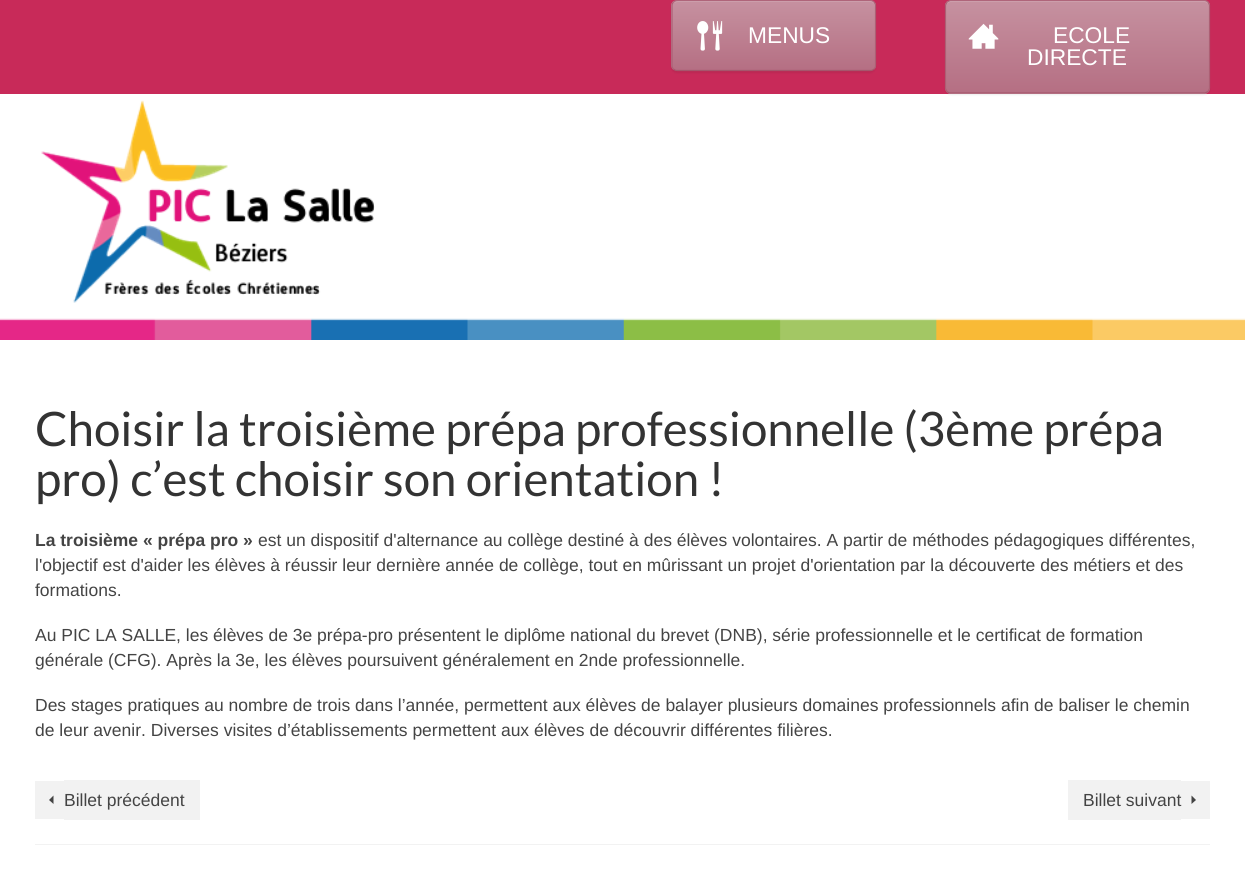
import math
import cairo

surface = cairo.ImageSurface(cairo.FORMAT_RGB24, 1245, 880)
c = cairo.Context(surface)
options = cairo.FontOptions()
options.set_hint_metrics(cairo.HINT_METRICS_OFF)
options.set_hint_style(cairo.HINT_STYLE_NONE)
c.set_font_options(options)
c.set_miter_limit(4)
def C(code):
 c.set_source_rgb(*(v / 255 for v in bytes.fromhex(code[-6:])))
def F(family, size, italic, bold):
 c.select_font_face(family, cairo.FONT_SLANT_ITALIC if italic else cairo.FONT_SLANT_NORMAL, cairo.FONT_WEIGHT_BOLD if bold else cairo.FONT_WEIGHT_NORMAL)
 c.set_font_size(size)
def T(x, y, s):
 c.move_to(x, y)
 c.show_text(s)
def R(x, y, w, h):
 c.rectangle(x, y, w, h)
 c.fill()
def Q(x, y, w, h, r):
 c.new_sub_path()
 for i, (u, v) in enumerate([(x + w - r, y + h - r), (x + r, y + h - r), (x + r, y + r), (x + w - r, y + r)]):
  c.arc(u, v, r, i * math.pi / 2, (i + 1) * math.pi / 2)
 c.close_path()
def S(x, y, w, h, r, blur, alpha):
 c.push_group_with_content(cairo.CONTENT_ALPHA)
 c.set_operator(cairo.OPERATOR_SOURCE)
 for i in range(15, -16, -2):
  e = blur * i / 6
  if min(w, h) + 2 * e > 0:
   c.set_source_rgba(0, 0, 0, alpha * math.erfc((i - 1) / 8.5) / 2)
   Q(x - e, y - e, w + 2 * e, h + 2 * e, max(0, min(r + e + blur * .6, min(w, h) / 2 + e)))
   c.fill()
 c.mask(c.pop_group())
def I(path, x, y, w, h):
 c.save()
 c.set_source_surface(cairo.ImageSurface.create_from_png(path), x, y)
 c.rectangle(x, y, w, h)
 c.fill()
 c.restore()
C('ffffff')
c.paint()
I('1.png',0,318,1245,22)
C('c82a59')
R(0,0,1245,94)
C('000000')
S(671,1,205,72,6,1,.07)
c.save()
Q(671,0,205,71,6)
c.clip()
gradient = cairo.LinearGradient(673,70,673,1.2)
gradient.add_color_stop_rgba(0,0.71,0.435,0.514,1)
gradient.add_color_stop_rgba(1,0.776,0.569,0.627,1)
c.set_source(gradient)
R(671,1,205,69)
c.restore()
C('d1a7b3')
c.new_path()
c.move_to(677,2)
c.line_to(871,2)
c.curve_to(873,2,875,4,875,7)
c.line_to(875,6)
c.curve_to(875,3,873,1,870,1)
c.line_to(678,1)
c.curve_to(677,1,675,2,674,3)
c.close_path()
c.fill()
c.new_path()
c.move_to(673.5,2)
c.curve_to(674.5,1,675.5,.5,677,.5)
c.line_to(870.5,.5)
c.curve_to(872,.5,873,1,874,2)
C('af657a')
c.set_line_width(1.2)
c.stroke()
c.new_path()
c.move_to(874,2)
c.curve_to(875,3,875.5,4.5,875.5,5.5)
c.line_to(875.5,65.5)
c.curve_to(875.5,67,875,68,874,69)
C('ac5f74')
c.stroke()
c.new_path()
c.move_to(874,69)
c.curve_to(873,70,872,70.5,870.5,70.5)
c.line_to(677,70.5)
c.curve_to(675.5,70.5,674.5,70,673.5,69)
C('a5566c')
c.stroke()
c.new_path()
c.move_to(673.5,69)
c.curve_to(672.5,68,672,67,672,65.5)
c.line_to(672,5.5)
c.curve_to(672,4.5,672.5,3,673.5,2)
C('ac5f74')
c.stroke()
I('2.png',697,21,26,30)
F('Liberation Sans',22.75,0,0)
C('ffffff')
T(748,43,'MENUS')
C('000000')
S(945,1,265,94,6,1,.07)
c.save()
Q(945,0,265,94,6)
c.clip()
gradient = cairo.LinearGradient(946,93,946,1.2)
gradient.add_color_stop_rgba(0,0.71,0.435,0.514,1)
gradient.add_color_stop_rgba(1,0.776,0.569,0.627,1)
c.set_source(gradient)
R(945,1,265,92)
gradient = cairo.LinearGradient(946,184,946,93)
gradient.add_color_stop_rgba(0,0.71,0.435,0.514,1)
gradient.add_color_stop_rgba(1,0.776,0.569,0.627,1)
c.set_source(gradient)
R(945,93,265,1)
c.restore()
C('d1a7b3')
c.new_path()
c.move_to(951,2)
c.line_to(1204,2)
c.curve_to(1207,2,1209,4,1209,7)
c.curve_to(1209,4,1207,1,1204,1)
c.line_to(951,1)
c.curve_to(948,1,946,4,946,7)
c.curve_to(946,4,948,2,951,2)
c.close_path()
c.fill()
c.new_path()
c.move_to(947,2)
c.line_to(950,.5)
c.line_to(1204.5,.5)
c.curve_to(1205.5,.5,1207,1,1208,2)
C('af657a')
c.stroke()
c.new_path()
c.move_to(1208,2)
c.line_to(1209.5,5)
c.line_to(1209.5,88.5)
c.line_to(1208,91.5)
C('ac5f74')
c.stroke()
c.new_path()
c.move_to(1208,91.5)
c.line_to(1205,93)
c.line_to(950.5,93)
c.curve_to(949.5,93,948,92.5,947,91.5)
C('a5566c')
c.stroke()
c.new_path()
c.move_to(947,91.5)
c.line_to(945.5,88.5)
c.line_to(945.5,5)
c.line_to(947,2)
C('ac5f74')
c.stroke()
I('3.png',968,23,31,26)
C('ffffff')
T(1053,43,'ECOLE')
T(1027,65,'DIRECTE')
I('4.png',41,100,334,203)
F('Lato',47.5,0,0)
C('333333')
T(35,446,'Choisir la troisième prépa professionnelle (3ème prépa')
T(35,496,'pro) c’est choisir son orientation !')
F('Liberation Sans',17.5,0,1)
C('444444')
T(35,546,'La troisième « prépa pro »')
F('Liberation Sans',17.5,0,0)
T(258,546,'est un dispositif d\'alternance au collège destiné à des élèves volontaires. A partir de méthodes pédagogiques différentes,')
T(35,571,'l\'objectif est d\'aider les élèves à réussir leur dernière année de collège, tout en mûrissant un projet d\'orientation par la découverte des métiers et des')
T(35,596,'formations.')
T(35,641,'Au PIC LA SALLE, les élèves de 3e prépa-pro présentent le diplôme national du brevet (DNB), série professionnelle et le certificat de formation')
T(35,666,'générale (CFG). Après la 3e, les élèves poursuivent généralement en 2nde professionnelle.')
T(35,711,'Des stages pratiques au nombre de trois dans l’année, permettent aux élèves de balayer plusieurs domaines professionnels afin de baliser le chemin')
T(35,736,'de leur avenir. Diverses visites d’établissements permettent aux élèves de découvrir différentes filières.')
C('f2f2f2')
R(35,844,1175,1)
R(64,780,136,40)
C('444444')
T(64,806,'Billet précédent')
C('f2f2f2')
R(35,781,29,38)
C('444444')
c.new_path()
c.move_to(53.5,795.5)
c.line_to(49,800)
c.line_to(53.5,804)
c.close_path()
c.fill()
C('f2f2f2')
R(1068,780,113,40)
R(1181,781,29,38)
C('444444')
T(1083,806,'Billet suivant')
c.new_path()
c.move_to(1191.5,804)
c.line_to(1196,800)
c.line_to(1191.5,795.5)
c.close_path()
c.fill()
surface.write_to_png('o.png')
